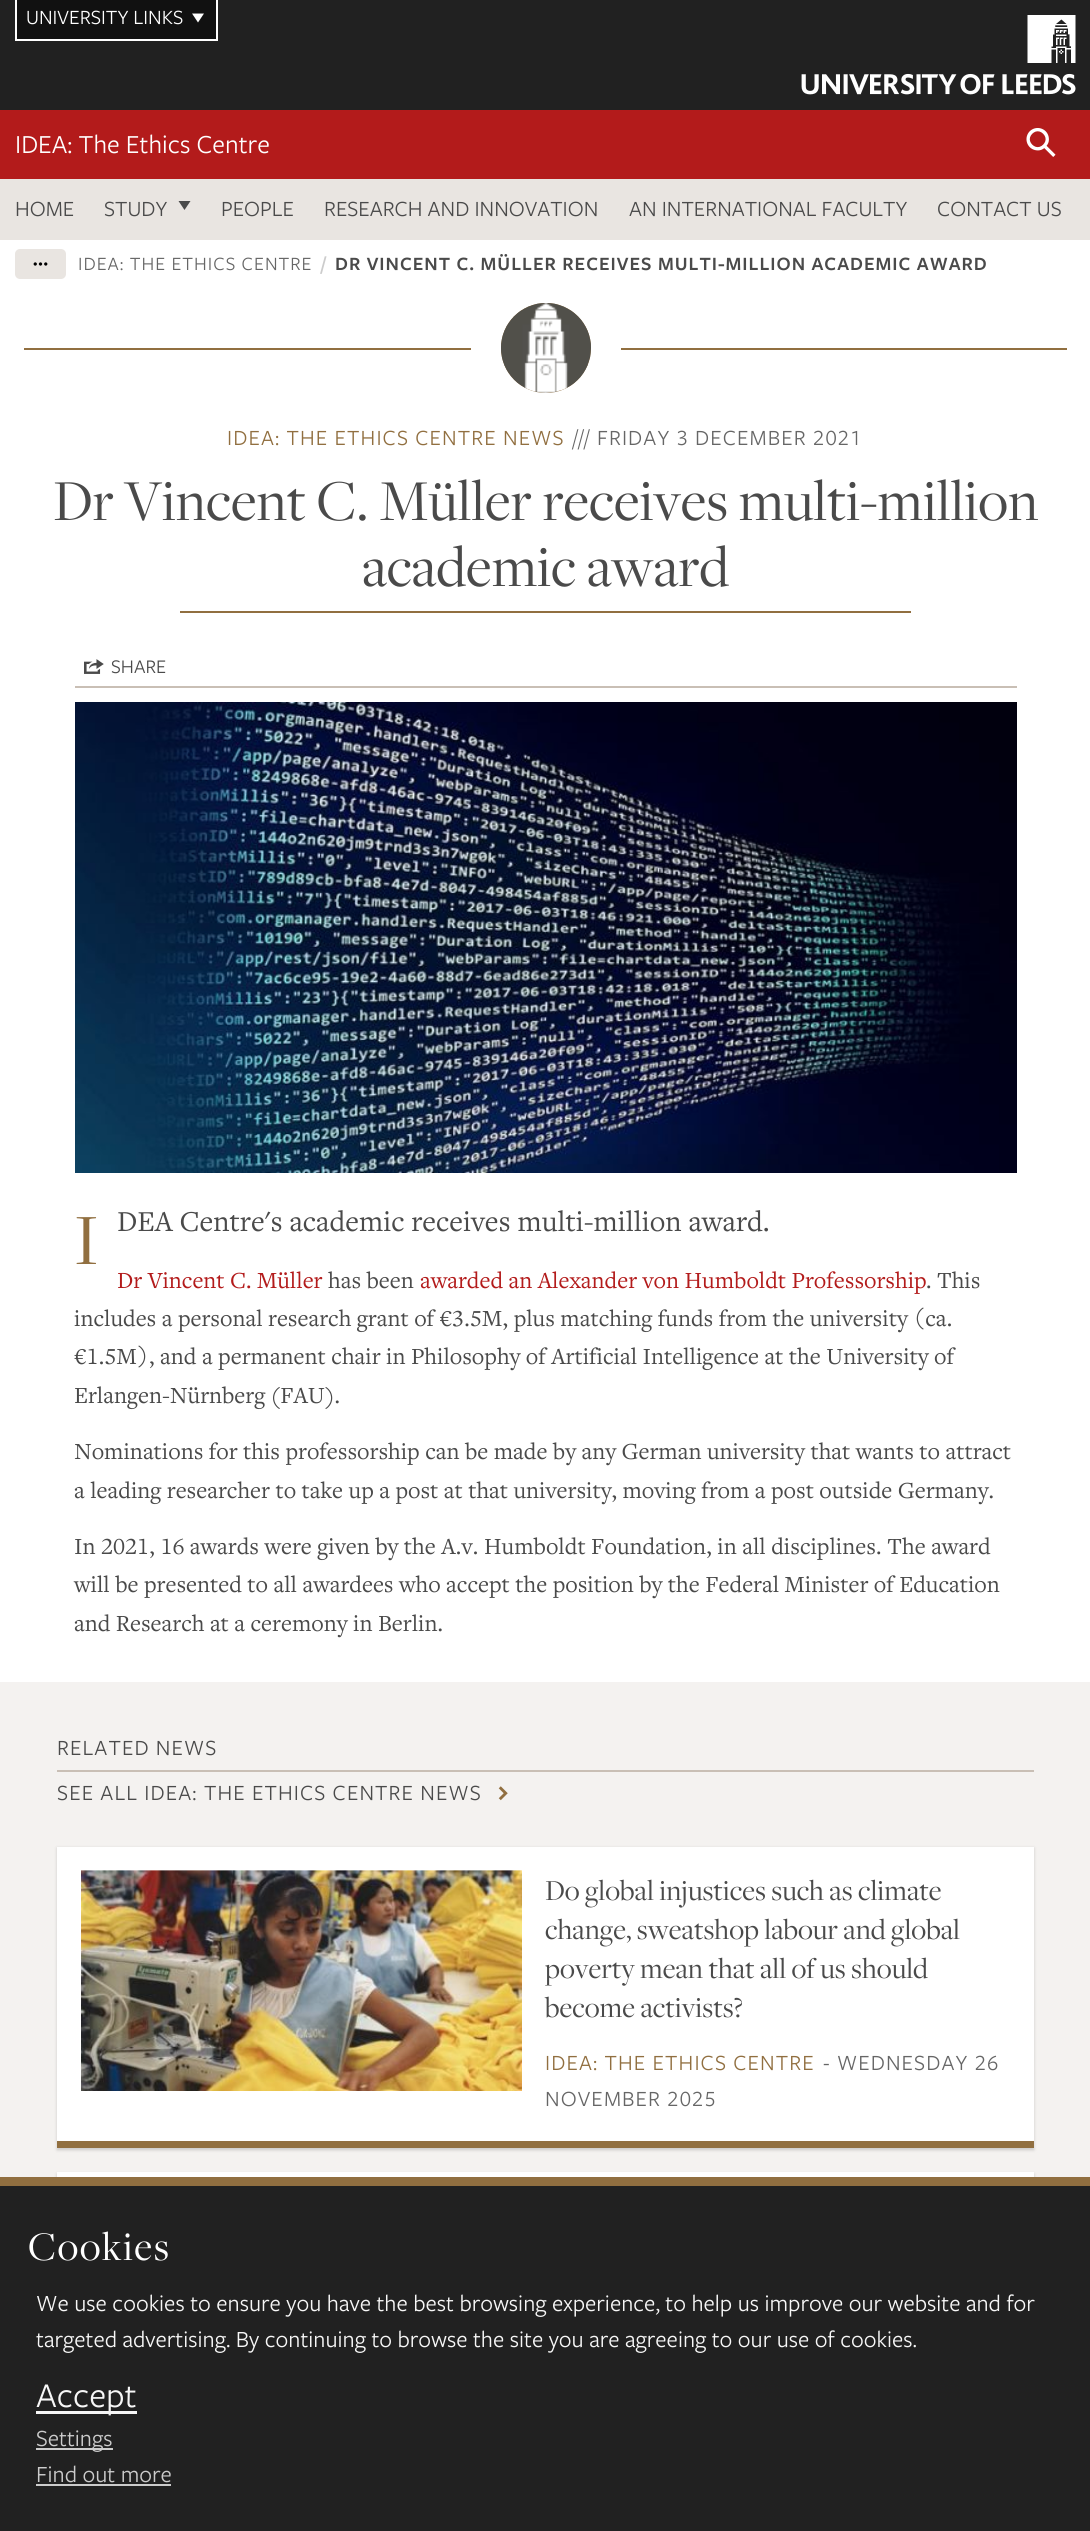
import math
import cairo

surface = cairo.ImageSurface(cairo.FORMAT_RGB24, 1090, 2531)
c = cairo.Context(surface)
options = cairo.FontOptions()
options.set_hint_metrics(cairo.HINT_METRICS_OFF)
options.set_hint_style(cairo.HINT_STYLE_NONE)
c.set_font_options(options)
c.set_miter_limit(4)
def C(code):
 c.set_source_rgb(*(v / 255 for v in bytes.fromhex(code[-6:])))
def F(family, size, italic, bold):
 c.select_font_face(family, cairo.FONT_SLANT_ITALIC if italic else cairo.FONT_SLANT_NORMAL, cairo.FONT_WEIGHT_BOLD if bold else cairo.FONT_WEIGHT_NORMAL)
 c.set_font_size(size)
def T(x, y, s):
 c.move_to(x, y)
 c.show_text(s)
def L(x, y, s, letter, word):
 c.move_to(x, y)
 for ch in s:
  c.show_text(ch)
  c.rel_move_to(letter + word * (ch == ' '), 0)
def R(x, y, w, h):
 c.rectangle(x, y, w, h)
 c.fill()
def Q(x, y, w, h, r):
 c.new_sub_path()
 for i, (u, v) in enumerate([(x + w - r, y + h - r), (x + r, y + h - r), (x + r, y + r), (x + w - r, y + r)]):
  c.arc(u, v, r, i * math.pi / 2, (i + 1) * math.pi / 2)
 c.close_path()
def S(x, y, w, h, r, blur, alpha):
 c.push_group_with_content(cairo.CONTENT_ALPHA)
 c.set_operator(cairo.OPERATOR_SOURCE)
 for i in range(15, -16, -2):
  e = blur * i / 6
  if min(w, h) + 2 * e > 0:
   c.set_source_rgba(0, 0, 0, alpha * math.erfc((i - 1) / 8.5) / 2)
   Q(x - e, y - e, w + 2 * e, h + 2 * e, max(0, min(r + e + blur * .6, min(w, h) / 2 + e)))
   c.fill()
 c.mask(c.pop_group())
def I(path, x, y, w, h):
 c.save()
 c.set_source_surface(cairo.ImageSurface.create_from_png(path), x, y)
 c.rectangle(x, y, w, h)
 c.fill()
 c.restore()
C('ffffff')
c.paint()
C('212121')
R(0,0,1090,110)
I('1.png',801,15,275,80)
C('111111')
R(17,0,199,39)
C('ffffff')
R(216,0,2,41)
R(15,39,203,2)
R(15,0,2,41)
F('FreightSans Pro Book',21,0,0)
T(26,24,'UNIVERSITY LINKS')
c.new_path()
c.move_to(204,13.5)
c.line_to(198,22.5)
c.line_to(192,13.5)
c.close_path()
c.fill()
C('b31b1b')
R(0,110,1090,69)
F('FreightSans Pro Book',27,0,0)
C('ffffff')
T(15,153,'IDEA: The Ethics Centre')
I('2.png',1026,128,30,29)
C('e9e5e1')
R(0,179,1090,61)
F('FreightSans Pro Book',22.5,0,0)
C('4a4a4a')
T(15,216,'HOME')
T(104,216,'STUDY')
c.new_path()
c.move_to(190.5,201)
c.line_to(184.5,210)
c.line_to(178.5,201)
c.close_path()
c.fill()
T(221,216,'PEOPLE')
T(324,216,'RESEARCH AND INNOVATION')
T(629,216,'AN INTERNATIONAL FACULTY')
T(937,216,'CONTACT US')
C('e9e5e1')
Q(15,249,51,30,5)
c.fill()
I('3.png',33,262,15,4)
F('FreightSans Pro Book',19.5,0,0)
C('666666')
L(78,270,'IDEA: THE ETHICS CENTRE',.98,0)
F('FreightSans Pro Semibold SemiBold',19.5,0,0)
C('cccccc')
L(321,270,'/',.98,0)
C('4a4a4a')
L(335,270,'DR VINCENT C. MÜLLER RECEIVES MULTI-MILLION ACADEMIC AWARD',.98,0)
C('916f40')
R(24,348,447,2)
c.new_path()
c.arc(546,348,45,0,2 * math.pi)
c.fill()
I('4.png',501,303,90,90)
R(621,348,446,2)
F('FreightSans Pro Book',22.5,0,0)
L(227,445,'IDEA: THE ETHICS CENTRE NEWS',1.1,0)
C('666666')
L(573,445,'///',1.1,0)
F('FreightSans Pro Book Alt',22.5,0,0)
L(597,445,'FRIDAY 3 DECEMBER 2021',1.1,0)
F('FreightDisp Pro',60,0,0)
C('4a4a4a')
T(53,520,'Dr Vincent C. Müller receives multi-million')
T(362,586,'academic award')
C('916f40')
R(180,611,731,2)
I('5.png',84,659,20,15)
F('FreightSans Pro Book',20,0,0)
C('4a4a4a')
T(111,673,'SHARE')
C('c9bfb5')
R(75,686,942,2)
I('6.png',75,702,942,471)
F('FreightDisp Pro',75,0,0)
C('916f40')
T(74,1264,'I')
F('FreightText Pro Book',30,0,0)
C('4a4a4a')
T(117,1231,'DEA Centre\'s academic receives multi-million award.')
F('FreightText Pro Book',24,0,0)
C('b31b1b')
T(117,1288,'Dr Vincent C. Müller')
C('4a4a4a')
T(328,1288,'has been')
C('b31b1b')
T(420,1288,'awarded an Alexander von Humboldt Professorship')
C('4a4a4a')
T(926,1288,'. This')
F('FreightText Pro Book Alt',24,0,0)
T(74,1326,'includes a personal research grant of €3.5M, plus matching funds from the university (ca.')
T(74,1364,'€1.5M), and a permanent chair in Philosophy of Artificial Intelligence at the University of')
F('FreightText Pro Book',24,0,0)
T(74,1403,'Erlangen-Nürnberg (FAU).')
T(74,1459,'Nominations for this professorship can be made by any German university that wants to attract')
T(74,1498,'a leading researcher to take up a post at that university, moving from a post outside Germany.')
F('FreightText Pro Book Alt',24,0,0)
T(74,1554,'In 2021, 16 awards were given by the A.v. Humboldt Foundation, in all disciplines. The award')
F('FreightText Pro Book',24,0,0)
T(74,1592,'will be presented to all awardees who accept the position by the Federal Minister of Education')
T(74,1631,'and Research at a ceremony in Berlin.')
C('f4f2f0')
R(0,1682,1090,495)
C('c9bfb5')
R(57,1770,977,2)
F('FreightSans Pro Book',22.5,0,0)
C('4a4a4a')
L(57,1755,'RELATED NEWS',1.1,0)
L(57,1800,'SEE ALL IDEA: THE ETHICS CENTRE NEWS',1.1,0)
I('7.png',498,1786,10,15)
C('000000')
S(57,1848,977,302,0,1.5,.17)
C('ffffff')
R(57,1847,977,294)
C('916f40')
R(57,2141,977,7)
I('8.png',81,1870,441,1)
I('9.png',81,1870,441,221)
F('FreightDisp Pro',30,0,0)
C('4a4a4a')
T(545,1900,'Do global injustices such as climate')
T(545,1939,'change, sweatshop labour and global')
T(545,1978,'poverty mean that all of us should')
T(545,2017,'become activists?')
F('FreightSans Pro Book',22.5,0,0)
C('916f40')
L(545,2070,'IDEA: THE ETHICS CENTRE',1.1,0)
F('FreightSans Pro Book Alt',22.5,0,0)
C('666666')
L(823,2070,'- WEDNESDAY 26',1.1,0)
L(545,2106,'NOVEMBER 2025',1.1,0)
C('000000')
S(57,2174,977,276,0,1.5,.17)
C('ffffff')
R(57,2172,977,5)
C('212121')
R(0,2186,1090,345)
C('916f40')
R(0,2177,1090,9)
F('FreightDisp Pro',42,0,0)
C('ffffff')
L(28,2260,'Cookies',1.5,0)
F('FreightSans Pro Book',24,0,0)
C('f7f7f7')
T(36,2311,'We use cookies to ensure you have the best browsing experience, to help us improve our website and for')
T(36,2347,'targeted advertising. By continuing to browse the site you are agreeing to our use of cookies.')
R(36,2411,101,3)
F('FreightSans Pro Book',36,0,0)
T(36,2407,'Accept')
C('cccccc')
R(36,2448,77,2)
F('FreightSans Pro Book',24,0,0)
T(36,2446,'Settings')
T(36,2482,'Find out more')
R(36,2484,135,2)
surface.write_to_png('o.png')
